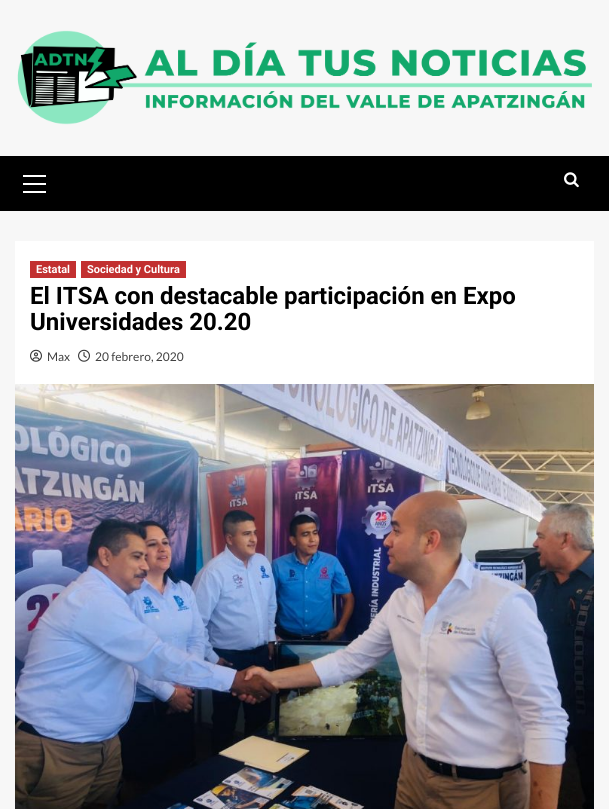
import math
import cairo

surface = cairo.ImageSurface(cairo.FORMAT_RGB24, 609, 809)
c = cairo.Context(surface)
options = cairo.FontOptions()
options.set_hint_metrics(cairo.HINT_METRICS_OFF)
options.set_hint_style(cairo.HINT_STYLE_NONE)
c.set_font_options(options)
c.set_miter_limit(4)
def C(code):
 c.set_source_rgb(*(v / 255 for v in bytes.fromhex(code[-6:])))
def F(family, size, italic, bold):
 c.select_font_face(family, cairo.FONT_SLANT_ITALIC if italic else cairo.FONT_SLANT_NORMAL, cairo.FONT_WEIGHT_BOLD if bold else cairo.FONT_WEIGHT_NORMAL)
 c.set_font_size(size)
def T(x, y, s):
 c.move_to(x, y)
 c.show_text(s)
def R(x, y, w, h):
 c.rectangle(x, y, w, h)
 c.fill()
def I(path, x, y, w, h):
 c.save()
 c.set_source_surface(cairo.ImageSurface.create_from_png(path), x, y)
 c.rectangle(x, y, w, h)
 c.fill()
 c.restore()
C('f7f7f7')
c.paint()
I('1.png',17,30,575,95)
C('000000')
R(0,156,609,55)
C('ffffff')
R(23,183,23,2)
R(23,175,23,2)
R(23,191,23,2)
I('2.png',564,172,15,16)
R(15,241,579,143)
C('c23030')
R(30,261,46,17)
F('Roboto',11,0,1)
C('ffffff')
T(36,273,'Estatal')
C('c23030')
R(81,261,105,17)
C('ffffff')
T(87,273,'Sociedad y Cultura')
F('Roboto',24,0,1)
C('000000')
T(30,304,'El ITSA con destacable participación en Expo')
T(30,330,'Universidades 20.20')
I('3.png',30,349,12,13)
F('Lato',12,0,0)
C('404040')
T(47,361,'Max')
I('4.png',78,349,12,13)
T(95,361,'20 febrero, 2020')
I('5.png',15,384,579,425)
surface.write_to_png('o.png')
